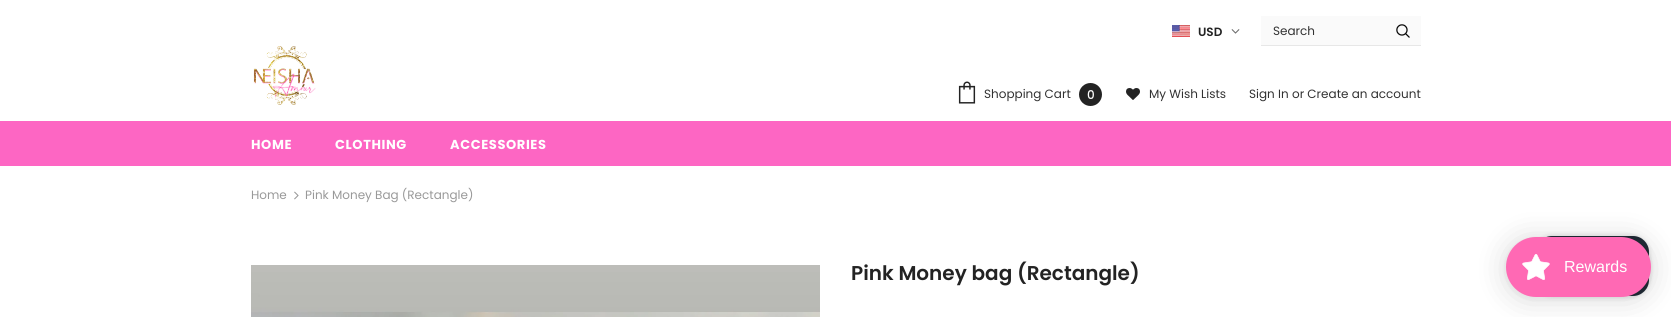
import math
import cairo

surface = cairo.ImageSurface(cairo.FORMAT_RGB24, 1671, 317)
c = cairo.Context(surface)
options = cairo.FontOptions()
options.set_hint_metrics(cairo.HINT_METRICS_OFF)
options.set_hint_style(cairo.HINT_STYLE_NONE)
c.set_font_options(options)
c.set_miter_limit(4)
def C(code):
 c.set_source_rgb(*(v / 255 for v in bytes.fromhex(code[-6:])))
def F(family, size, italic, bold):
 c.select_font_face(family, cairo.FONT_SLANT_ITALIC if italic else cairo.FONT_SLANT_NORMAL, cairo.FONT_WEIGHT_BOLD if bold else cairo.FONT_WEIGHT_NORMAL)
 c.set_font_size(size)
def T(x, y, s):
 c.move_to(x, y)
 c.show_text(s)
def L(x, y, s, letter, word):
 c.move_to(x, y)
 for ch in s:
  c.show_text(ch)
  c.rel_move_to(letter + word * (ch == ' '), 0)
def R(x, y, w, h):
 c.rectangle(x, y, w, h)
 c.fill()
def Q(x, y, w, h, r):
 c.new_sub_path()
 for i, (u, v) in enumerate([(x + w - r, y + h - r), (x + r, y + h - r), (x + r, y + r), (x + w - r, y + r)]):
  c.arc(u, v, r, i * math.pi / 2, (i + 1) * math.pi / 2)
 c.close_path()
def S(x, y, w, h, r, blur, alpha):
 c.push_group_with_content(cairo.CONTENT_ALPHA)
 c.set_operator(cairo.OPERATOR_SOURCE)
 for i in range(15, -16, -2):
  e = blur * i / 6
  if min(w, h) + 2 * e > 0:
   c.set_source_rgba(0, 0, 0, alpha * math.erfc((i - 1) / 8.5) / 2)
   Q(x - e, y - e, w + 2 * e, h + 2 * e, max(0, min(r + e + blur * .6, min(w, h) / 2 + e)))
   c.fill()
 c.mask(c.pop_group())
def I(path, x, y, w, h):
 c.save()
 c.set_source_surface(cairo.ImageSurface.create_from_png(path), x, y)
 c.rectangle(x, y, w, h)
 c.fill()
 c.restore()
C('ffffff')
c.paint()
I('1.png',1172,25,18,12)
F('Poppins SemiBold',12,0,0)
C('232323')
T(1198,36,'USD')
I('2.png',1231,29,9,5)
C('fafafa')
R(1261,16,160,29)
C('e7e7e7')
R(1261,45,160,1)
F('Poppins',12,0,0)
C('323232')
T(1273,35,'Search')
I('3.png',1396,24,14,14)
I('4.png',253,46,63,59)
I('5.png',958,81,18,23)
T(984,98,'Shopping Cart')
C('232323')
c.new_path()
c.arc(1090.5,94.5,11.5,0,2 * math.pi)
c.fill()
F('Poppins Medium',12,0,0)
C('ffffff')
T(1087,99,'0')
I('6.png',1126,88,14,12)
F('Poppins',12,0,0)
C('323232')
T(1149,98,'My Wish Lists')
T(1249,98,'Sign In')
T(1292,98,'or Create an account')
C('fd66c3')
R(0,121,1671,45)
F('Poppins',13,0,1)
C('ffffff')
L(251,149,'HOME',.6,0)
L(335,149,'CLOTHING',.6,0)
L(450,149,'ACCESSORIES',.6,0)
F('Poppins',12,0,0)
C('999999')
T(251,199,'Home')
I('7.png',294,191,5,9)
T(305,199,'Pink Money Bag (Rectangle)')
I('8.png',251,265,569,52)
F('Poppins SemiBold',20,0,0)
C('232323')
T(851,280,'Pink Money bag (Rectangle)')
C('000000')
S(1536,236,113,60,16,2.5,.15)
C('202a36')
Q(1536,236,113,60,16)
c.fill()
C('000000')
S(1506,239,145,60,30,15,.15)
S(1506,238,145,60,30,3,.05)
C('ff69b4')
Q(1506,237,145,60,30)
c.fill()
I('9.png',1522,254,28,26)
F('Liberation Sans',16,0,0)
C('ffffff')
T(1564,272,'Rewards')
surface.write_to_png('o.png')
